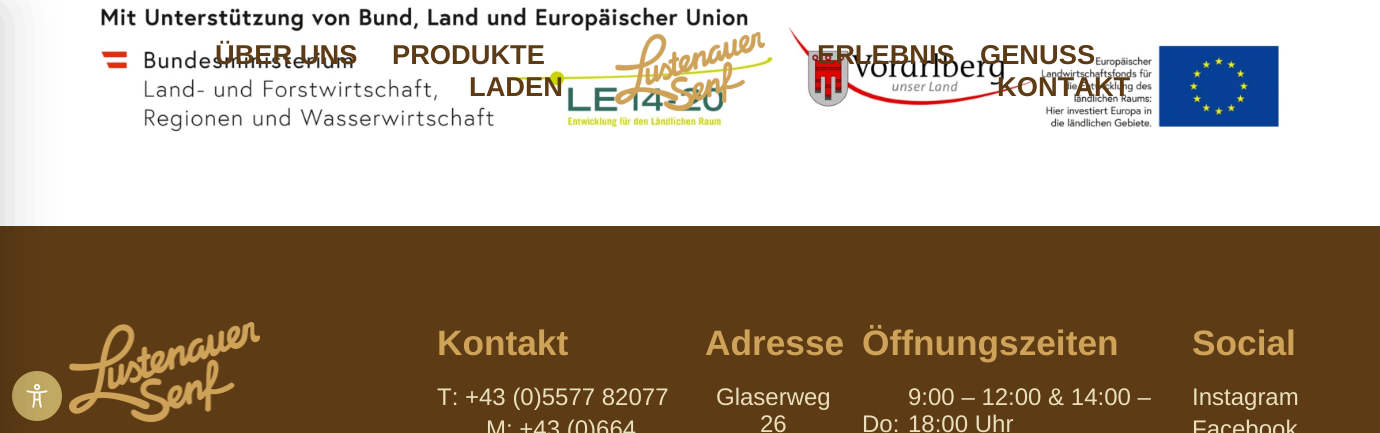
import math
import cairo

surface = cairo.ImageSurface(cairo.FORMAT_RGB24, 1380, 433)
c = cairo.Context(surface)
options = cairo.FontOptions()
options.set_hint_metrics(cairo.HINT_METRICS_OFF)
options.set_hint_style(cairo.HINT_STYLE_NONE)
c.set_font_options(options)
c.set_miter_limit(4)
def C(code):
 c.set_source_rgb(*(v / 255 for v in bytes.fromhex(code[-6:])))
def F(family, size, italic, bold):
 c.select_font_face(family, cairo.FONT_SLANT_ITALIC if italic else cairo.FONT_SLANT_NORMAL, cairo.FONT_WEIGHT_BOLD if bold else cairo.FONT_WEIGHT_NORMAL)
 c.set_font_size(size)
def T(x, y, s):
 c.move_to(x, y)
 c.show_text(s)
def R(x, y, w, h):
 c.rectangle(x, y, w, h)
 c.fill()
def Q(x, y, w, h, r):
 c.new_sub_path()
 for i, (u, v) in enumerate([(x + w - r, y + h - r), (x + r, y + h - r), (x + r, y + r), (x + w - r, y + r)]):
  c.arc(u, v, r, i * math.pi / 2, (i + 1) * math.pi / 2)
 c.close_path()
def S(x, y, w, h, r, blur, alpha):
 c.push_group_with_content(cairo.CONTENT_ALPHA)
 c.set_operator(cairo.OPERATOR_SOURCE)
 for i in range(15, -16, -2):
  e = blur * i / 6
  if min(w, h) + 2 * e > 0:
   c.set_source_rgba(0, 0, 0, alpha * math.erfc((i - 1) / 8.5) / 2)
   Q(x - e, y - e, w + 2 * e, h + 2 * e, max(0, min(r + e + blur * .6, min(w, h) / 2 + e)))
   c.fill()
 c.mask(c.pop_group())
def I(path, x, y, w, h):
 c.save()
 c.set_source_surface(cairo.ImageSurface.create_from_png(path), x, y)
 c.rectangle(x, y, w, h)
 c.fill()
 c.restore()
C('ffffff')
c.paint()
C('5d3b15')
R(0,226,1380,207)
C('c2aa63')
c.arc(37,396,25,0,2 * math.pi)
c.fill()
I('2.png',26,384,22,24)
I('4.png',69,322,191,100)
C('000000')
S(-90,10,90,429,0,30,.2)
I('3.png',101,7,1181,125)
F('Liberation Sans',27.25,0,1)
C('5d3b15')
T(215,64,'ÜBER UNS')
T(392,64,'PRODUKTE')
T(469,96,'LADEN')
I('1.png',615,32,150,79)
T(817,64,'ERLEBNIS')
T(980,64,'GENUSS')
T(997,96,'KONTAKT')
F('Liberation Sans',35.25,0,1)
C('cea359')
T(437,355,'Kontakt')
F('Liberation Sans',24,0,0)
C('e9dfbc')
T(437,405,'T: +43 (0)5577 82077')
T(486,437,'M: +43 (0)664')
F('Liberation Sans',35.25,0,1)
C('cea359')
T(705,355,'Adresse')
F('Liberation Sans',24,0,0)
C('e9dfbc')
T(716,405,'Glaserweg')
T(760,432,'26')
F('Liberation Sans',35.25,0,1)
C('cea359')
T(862,355,'Öffnungszeiten')
F('Liberation Sans',24,0,0)
C('e9dfbc')
T(862,432,'Do:')
T(908,405,'9:00 – 12:00 & 14:00 –')
T(908,432,'18:00 Uhr')
F('Liberation Sans',35.25,0,1)
C('cea359')
T(1192,355,'Social')
F('Liberation Sans',24,0,0)
C('e9dfbc')
T(1192,405,'Instagram')
T(1192,437,'Facebook')
surface.write_to_png('o.png')
